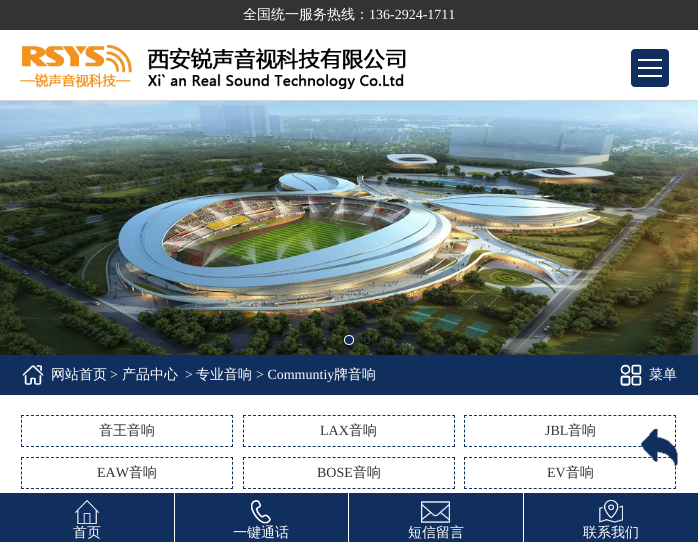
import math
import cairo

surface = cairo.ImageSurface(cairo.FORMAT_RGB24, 698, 542)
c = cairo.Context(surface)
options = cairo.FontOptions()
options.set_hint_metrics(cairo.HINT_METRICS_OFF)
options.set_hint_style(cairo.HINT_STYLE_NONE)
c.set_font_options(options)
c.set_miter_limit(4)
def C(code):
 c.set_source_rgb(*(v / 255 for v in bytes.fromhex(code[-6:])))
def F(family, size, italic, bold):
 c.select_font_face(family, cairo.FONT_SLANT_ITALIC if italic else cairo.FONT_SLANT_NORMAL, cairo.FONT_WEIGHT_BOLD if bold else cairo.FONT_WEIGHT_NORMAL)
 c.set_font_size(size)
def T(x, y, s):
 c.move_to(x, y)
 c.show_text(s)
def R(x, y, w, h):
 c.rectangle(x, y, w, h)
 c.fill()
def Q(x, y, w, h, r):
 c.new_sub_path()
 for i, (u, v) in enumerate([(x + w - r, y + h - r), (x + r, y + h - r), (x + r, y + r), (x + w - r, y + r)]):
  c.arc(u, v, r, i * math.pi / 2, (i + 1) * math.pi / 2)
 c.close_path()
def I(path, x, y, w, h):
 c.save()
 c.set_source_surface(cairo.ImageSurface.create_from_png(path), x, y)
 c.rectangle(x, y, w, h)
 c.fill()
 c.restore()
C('ffffff')
c.paint()
C('333333')
R(0,0,698,30)
F('WenQuanYi Zen Hei Medium',14,0,0)
C('ffffff')
T(243,19,'全国统一服务热线：')
F('Liberation Serif',14,0,0)
T(369,19,'136-2924-1711')
C('d6d6d6')
R(0,100,698,1)
I('1.png',20,44,386,45)
C('102f5e')
Q(630.5,48.5,39,39,4.5)
c.fill_preserve()
C('ffffff')
c.set_line_width(1)
c.stroke()
R(638,59,24,2)
R(638,67,24,2)
R(638,75,24,2)
I('2.png',0,101,698,254)
C('102f5e')
c.arc(349,340,4.5,0,2 * math.pi)
c.fill_preserve()
C('ffffff')
c.stroke()
c.set_source_rgba(0,0,0,0.2)
Q(364,337,6,7,3)
c.fill()
Q(364.35,337.35,5.3,6.3,2.65)
c.set_source_rgba(1,1,1,0.2)
c.set_line_width(.7)
c.stroke()
c.set_source_rgba(0,0,0,0.2)
Q(383,339,4,3,1.5)
c.fill()
c.rectangle(383.15,339.15,3.7,2.7)
c.set_source_rgba(1,1,1,0.2)
c.set_line_width(.3)
c.stroke()
C('102f5e')
R(0,355,698,40)
I('3.png',22,365,22,20)
F('WenQuanYi Zen Hei Medium',14,0,0)
C('ffffff')
T(51,379,'网站首页')
F('Liberation Serif',14,0,0)
T(110,379,'>')
F('WenQuanYi Zen Hei Medium',14,0,0)
T(122,379,'产品中心')
F('Liberation Serif',14,0,0)
T(185,379,'>')
F('WenQuanYi Zen Hei Medium',14,0,0)
T(196,379,'专业音响')
F('Liberation Serif',14,0,0)
T(256,379,'> Communtiy')
F('WenQuanYi Zen Hei Medium',14,0,0)
T(334,379,'牌音响')
I('4.png',620,364,22,22)
T(649,379,'菜单')
c.new_path()
c.move_to(21,415.5)
c.line_to(233,415.5)
C('102f5e')
c.set_line_width(1)
c.set_dash([3,1.98])
c.stroke()
c.new_path()
c.move_to(232.5,415)
c.line_to(232.5,447)
c.set_dash([3,1.83])
c.stroke()
c.new_path()
c.move_to(21,446.5)
c.line_to(233,446.5)
c.set_dash([3,1.98])
c.stroke()
c.new_path()
c.move_to(21.5,415)
c.line_to(21.5,447)
c.set_dash([3,1.83])
c.stroke()
C('333333')
T(99,435,'音王音响')
c.new_path()
c.move_to(243,415.5)
c.line_to(455,415.5)
C('102f5e')
c.set_dash([3,1.98])
c.stroke()
c.new_path()
c.move_to(454.5,415)
c.line_to(454.5,447)
c.set_dash([3,1.83])
c.stroke()
c.new_path()
c.move_to(243,446.5)
c.line_to(455,446.5)
c.set_dash([3,1.98])
c.stroke()
c.new_path()
c.move_to(243.5,415)
c.line_to(243.5,447)
c.set_dash([3,1.83])
c.stroke()
F('Liberation Serif',14,0,0)
C('333333')
T(320,435,'LAX')
F('WenQuanYi Zen Hei Medium',14,0,0)
T(349,435,'音响')
c.new_path()
c.move_to(464,415.5)
c.line_to(676,415.5)
C('102f5e')
c.set_dash([3,1.98])
c.stroke()
c.new_path()
c.move_to(675.5,415)
c.line_to(675.5,447)
c.set_dash([3,1.83])
c.stroke()
c.new_path()
c.move_to(464,446.5)
c.line_to(676,446.5)
c.set_dash([3,1.98])
c.stroke()
c.new_path()
c.move_to(464.5,415)
c.line_to(464.5,447)
c.set_dash([3,1.83])
c.stroke()
F('Liberation Serif',14,0,0)
C('333333')
T(545,435,'JBL')
F('WenQuanYi Zen Hei Medium',14,0,0)
T(568,435,'音响')
c.new_path()
c.move_to(21,457.5)
c.line_to(233,457.5)
C('102f5e')
c.set_dash([3,1.98])
c.stroke()
c.new_path()
c.move_to(232.5,457)
c.line_to(232.5,489)
c.set_dash([3,1.83])
c.stroke()
c.new_path()
c.move_to(21,488.5)
c.line_to(233,488.5)
c.set_dash([3,1.98])
c.stroke()
c.new_path()
c.move_to(21.5,457)
c.line_to(21.5,489)
c.set_dash([3,1.83])
c.stroke()
F('Liberation Serif',14,0,0)
C('333333')
T(97,477,'EAW')
F('WenQuanYi Zen Hei Medium',14,0,0)
T(129,477,'音响')
c.new_path()
c.move_to(243,457.5)
c.line_to(455,457.5)
C('102f5e')
c.set_dash([3,1.98])
c.stroke()
c.new_path()
c.move_to(454.5,457)
c.line_to(454.5,489)
c.set_dash([3,1.83])
c.stroke()
c.new_path()
c.move_to(243,488.5)
c.line_to(455,488.5)
c.set_dash([3,1.98])
c.stroke()
c.new_path()
c.move_to(243.5,457)
c.line_to(243.5,489)
c.set_dash([3,1.83])
c.stroke()
F('Liberation Serif',14,0,0)
C('333333')
T(317,477,'BOSE')
F('WenQuanYi Zen Hei Medium',14,0,0)
T(353,477,'音响')
c.new_path()
c.move_to(464,457.5)
c.line_to(676,457.5)
C('102f5e')
c.set_dash([3,1.98])
c.stroke()
c.new_path()
c.move_to(675.5,457)
c.line_to(675.5,489)
c.set_dash([3,1.83])
c.stroke()
c.new_path()
c.move_to(464,488.5)
c.line_to(676,488.5)
c.set_dash([3,1.98])
c.stroke()
c.new_path()
c.move_to(464.5,457)
c.line_to(464.5,489)
c.set_dash([3,1.83])
c.stroke()
F('Liberation Serif',14,0,0)
C('333333')
T(547,477,'EV')
F('WenQuanYi Zen Hei Medium',14,0,0)
T(566,477,'音响')
I('5.png',641,429,37,37)
C('102f5e')
R(0,493,698,49)
C('ffffff')
R(174,493,1,49)
I('6.png',75,500,24,24)
T(73,537,'首页')
R(348,493,1,49)
I('7.png',251,500,20,24)
T(233,537,'一键通话')
R(523,493,1,49)
I('8.png',421,501,29,22)
T(408,537,'短信留言')
I('9.png',599,500,24,23)
T(583,537,'联系我们')
surface.write_to_png('o.png')
